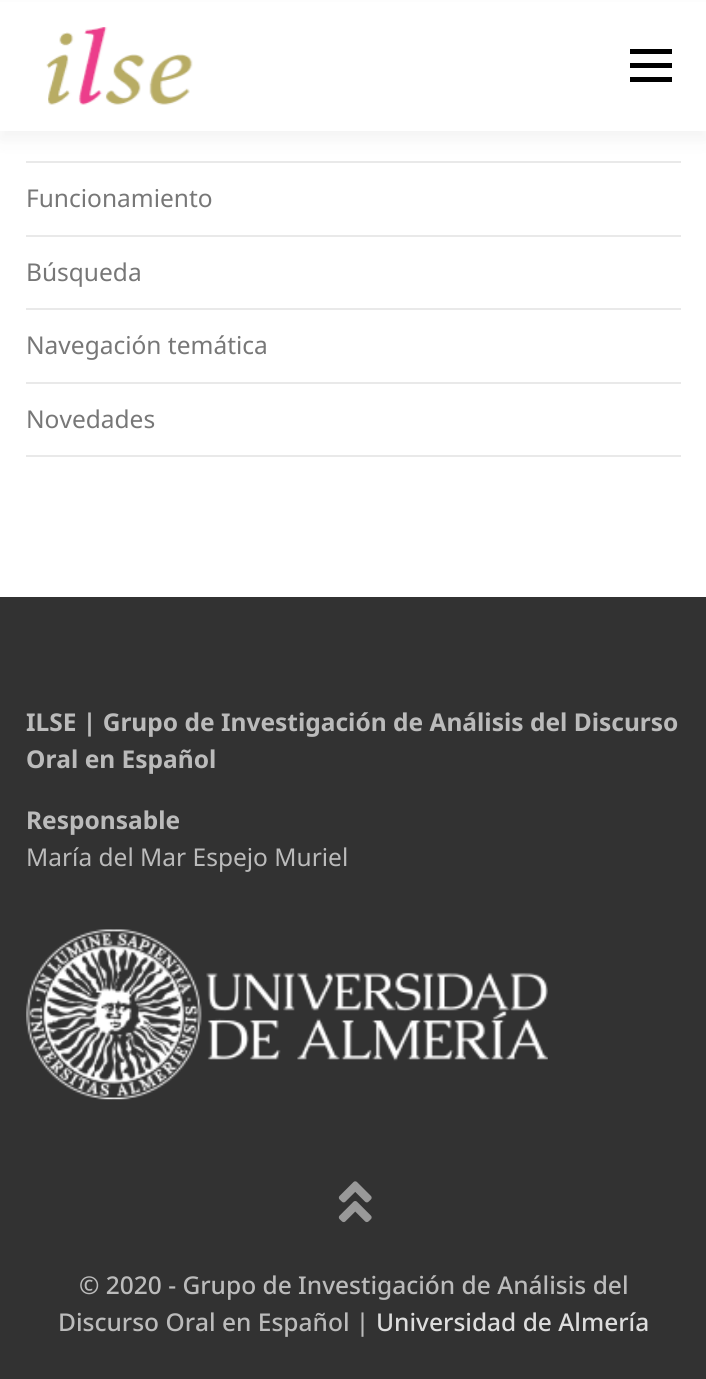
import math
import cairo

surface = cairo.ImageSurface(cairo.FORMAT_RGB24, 706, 1379)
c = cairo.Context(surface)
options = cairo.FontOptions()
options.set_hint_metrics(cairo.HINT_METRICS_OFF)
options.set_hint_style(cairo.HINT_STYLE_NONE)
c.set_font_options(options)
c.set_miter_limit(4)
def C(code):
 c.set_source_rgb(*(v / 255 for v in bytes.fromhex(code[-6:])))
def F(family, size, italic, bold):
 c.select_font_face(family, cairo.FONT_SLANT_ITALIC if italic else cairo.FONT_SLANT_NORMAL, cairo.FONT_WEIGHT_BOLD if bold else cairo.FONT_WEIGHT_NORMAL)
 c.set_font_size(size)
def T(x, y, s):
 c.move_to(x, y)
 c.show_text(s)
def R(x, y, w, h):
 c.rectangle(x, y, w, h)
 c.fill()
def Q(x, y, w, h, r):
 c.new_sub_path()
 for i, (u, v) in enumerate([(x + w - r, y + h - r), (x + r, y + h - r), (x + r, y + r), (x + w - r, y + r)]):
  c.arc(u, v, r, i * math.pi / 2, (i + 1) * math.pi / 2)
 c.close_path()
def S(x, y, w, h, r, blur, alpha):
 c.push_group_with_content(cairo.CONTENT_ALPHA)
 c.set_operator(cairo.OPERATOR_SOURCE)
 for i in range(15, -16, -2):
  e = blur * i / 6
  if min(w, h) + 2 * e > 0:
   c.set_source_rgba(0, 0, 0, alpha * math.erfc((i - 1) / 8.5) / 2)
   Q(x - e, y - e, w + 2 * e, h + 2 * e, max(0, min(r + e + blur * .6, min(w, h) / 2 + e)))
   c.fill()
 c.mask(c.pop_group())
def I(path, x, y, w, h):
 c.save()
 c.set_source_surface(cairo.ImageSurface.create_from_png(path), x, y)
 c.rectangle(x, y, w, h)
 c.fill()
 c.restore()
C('ffffff')
c.paint()
C('e9e9e9')
R(26,161,655,2)
C('323232')
S(0,9,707,131,0,9,.06)
C('ffffff')
R(0,2,706,129)
I('1.png',46,27,147,78)
C('000000')
R(630,63,42,5)
R(630,49,42,5)
R(630,77,42,5)
C('e9e9e9')
R(26,235,655,2)
F('Noto Sans',24.5,0,0)
C('777777')
T(26,207,'Funcionamiento')
C('e9e9e9')
R(26,308,655,2)
C('777777')
T(26,281,'Búsqueda')
C('e9e9e9')
R(26,382,655,2)
C('777777')
T(26,354,'Navegación temática')
C('e9e9e9')
R(26,455,655,2)
C('777777')
T(26,428,'Novedades')
C('323232')
R(0,597,706,782)
F('Noto Sans',24.5,0,1)
C('bbbbbb')
T(26,731,'ILSE | Grupo de Investigación de Análisis del Discurso')
T(26,768,'Oral en Español')
T(26,829,'Responsable')
F('Noto Sans',24.5,0,0)
T(26,866,'María del Mar Espejo Muriel')
I('2.png',26,929,522,171)
I('3.png',338,1181,34,42)
F('Noto Sans Medium',24.5,0,0)
T(79,1294,'© 2020 - Grupo de Investigación de Análisis del')
T(58,1331,'Discurso Oral en Español |')
C('dddddd')
T(376,1331,'Universidad de Almería')
surface.write_to_png('o.png')
